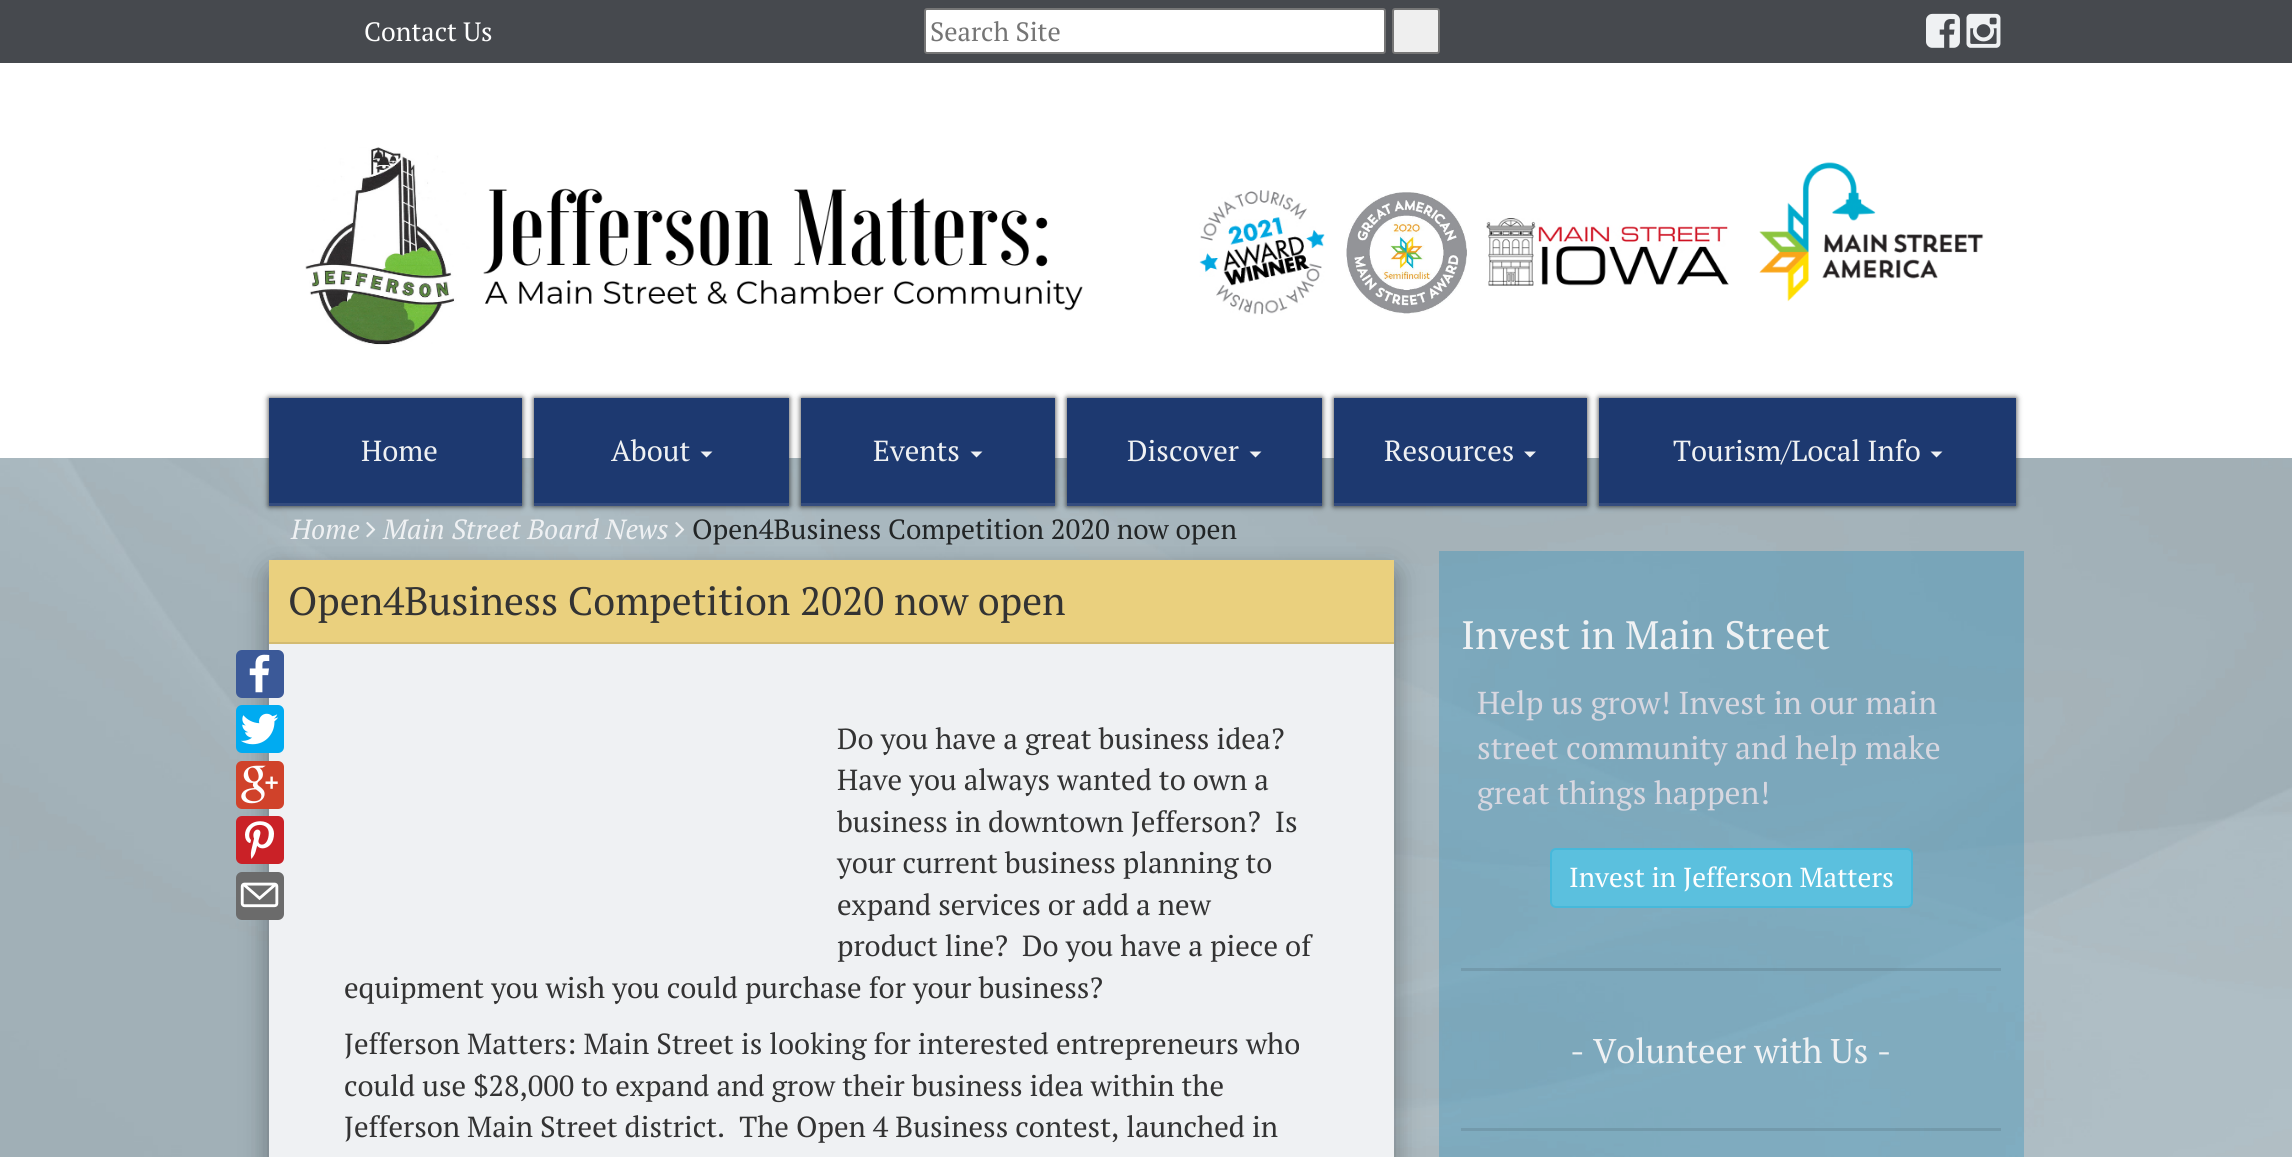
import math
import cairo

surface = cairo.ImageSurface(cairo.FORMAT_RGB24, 2292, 1157)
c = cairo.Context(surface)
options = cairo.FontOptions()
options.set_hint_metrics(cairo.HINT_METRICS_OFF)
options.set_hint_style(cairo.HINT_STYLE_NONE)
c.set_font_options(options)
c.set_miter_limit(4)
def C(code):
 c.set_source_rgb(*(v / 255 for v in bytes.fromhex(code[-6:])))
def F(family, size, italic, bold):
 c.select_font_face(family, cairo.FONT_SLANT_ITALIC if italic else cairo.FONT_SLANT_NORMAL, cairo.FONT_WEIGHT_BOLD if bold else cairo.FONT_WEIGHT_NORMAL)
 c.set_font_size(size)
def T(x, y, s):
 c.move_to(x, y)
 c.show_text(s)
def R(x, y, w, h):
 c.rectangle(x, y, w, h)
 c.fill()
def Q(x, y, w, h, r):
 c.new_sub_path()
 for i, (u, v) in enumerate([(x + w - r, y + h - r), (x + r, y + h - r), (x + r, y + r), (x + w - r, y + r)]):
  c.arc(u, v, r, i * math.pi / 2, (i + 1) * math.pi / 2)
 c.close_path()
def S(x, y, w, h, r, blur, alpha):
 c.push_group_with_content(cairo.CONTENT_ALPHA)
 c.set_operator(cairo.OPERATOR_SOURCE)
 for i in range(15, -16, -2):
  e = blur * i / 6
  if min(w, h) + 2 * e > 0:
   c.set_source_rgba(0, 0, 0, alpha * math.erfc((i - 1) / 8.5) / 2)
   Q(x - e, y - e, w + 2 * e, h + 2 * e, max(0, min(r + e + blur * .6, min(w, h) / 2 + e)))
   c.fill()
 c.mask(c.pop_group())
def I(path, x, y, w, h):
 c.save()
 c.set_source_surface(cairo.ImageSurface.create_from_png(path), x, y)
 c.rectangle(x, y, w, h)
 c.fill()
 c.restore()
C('ffffff')
c.paint()
I('1.png',0,458,2292,699)
C('46494e')
R(0,0,2292,63)
F('PT Serif',26.5,0,0)
C('fefefe')
T(364,41,'Contact Us')
C('ffffff')
Q(925,9,460,44,2)
c.fill_preserve()
C('767676')
c.stroke()
C('757575')
T(930,41,'Search Site')
C('efefef')
Q(1393,9,46,44,2)
c.fill_preserve()
C('767676')
c.stroke()
I('2.png',1926,13,34,35)
I('3.png',1966,13,35,35)
I('4.png',305,147,778,198)
I('5.png',1199,190,126,125)
I('6.png',1346,192,121,122)
I('7.png',1486,218,243,68)
I('8.png',1759,162,225,140)
C('000000')
S(269,398,253,108,0,3,.8)
C('1d3970')
R(269,398,253,105)
C('344c7e')
R(269,503,253,3)
F('PT Serif',29.05,0,0)
C('eff1f3')
T(361,461,'Home')
C('000000')
S(534,398,255,108,0,3,.8)
C('1d3970')
R(534,398,255,105)
C('344c7e')
R(534,503,255,3)
C('eff1f3')
T(611,461,'About')
c.new_path()
c.move_to(700.5,451.5)
c.line_to(712.5,451.5)
c.line_to(706.5,457.5)
c.close_path()
c.fill()
C('000000')
S(801,398,254,108,0,3,.8)
C('1d3970')
R(801,398,254,105)
C('344c7e')
R(801,503,254,3)
C('eff1f3')
T(873,461,'Events')
c.new_path()
c.move_to(970.5,451.5)
c.line_to(982.5,451.5)
c.line_to(976.5,457.5)
c.close_path()
c.fill()
C('000000')
S(1067,398,255,108,0,3,.8)
C('1d3970')
R(1067,398,255,105)
C('344c7e')
R(1067,503,255,3)
C('eff1f3')
T(1127,461,'Discover')
c.new_path()
c.move_to(1249.5,451.5)
c.line_to(1261.5,451.5)
c.line_to(1255.5,457.5)
c.close_path()
c.fill()
C('000000')
S(1334,398,253,108,0,3,.8)
C('1d3970')
R(1334,398,253,105)
C('344c7e')
R(1334,503,253,3)
C('eff1f3')
T(1384,461,'Resources')
c.new_path()
c.move_to(1524,451.5)
c.line_to(1536,451.5)
c.line_to(1530,457.5)
c.close_path()
c.fill()
C('000000')
S(1599,398,417,108,0,3,.8)
C('1d3970')
R(1599,398,417,105)
C('344c7e')
R(1599,503,417,3)
C('eff1f3')
T(1673,461,'Tourism/Local Info')
c.new_path()
c.move_to(1930.5,451.5)
c.line_to(1942.5,451.5)
c.line_to(1936.5,457.5)
c.close_path()
c.fill()
F('PT Serif',27.75,1,0)
T(291,539,'Home')
I('9.png',366,522,10,16)
T(383,539,'Main Street Board News')
I('10.png',675,522,10,16)
F('PT Serif',27.75,0,0)
C('222526')
T(692,539,'Open4Business Competition 2020 now open')
C('000000')
S(269,569,1125,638,5,15,.19)
S(269,572,1125,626,5,12,.2)
C('ead07e')
R(269,560,1125,82)
C('d3bb71')
R(269,642,1125,2)
F('PT Serif',39.6,0,0)
C('333333')
T(288,615,'Open4Business Competition 2020 now open')
C('eff1f3')
R(269,644,1125,513)
I('11.png',236,650,48,48)
I('12.png',236,705,48,48)
I('13.png',236,761,48,48)
I('14.png',236,816,48,48)
I('15.png',236,872,48,48)
F('PT Serif',29.05,0,0)
C('333333')
T(837,749,'Do you have a great business idea?')
T(837,790,'Have you always wanted to own a')
T(837,832,'business in downtown Jefferson?  Is')
T(837,873,'your current business planning to')
T(837,915,'expand services or add a new')
T(837,956,'product line?  Do you have a piece of')
T(344,998,'equipment you wish you could purchase for your business?')
T(344,1054,'Jefferson Matters: Main Street is looking for interested entrepreneurs who')
T(344,1096,'could use $28,000 to expand and grow their business idea within the')
T(344,1137,'Jefferson Main Street district.  The Open 4 Business contest, launched in')
c.set_source_rgba(0.086,0.522,0.725,0.3)
R(1439,551,585,606)
c.set_source_rgba(0,0,0,0.1)
R(1461,968,540,3)
F('PT Serif',39.6,0,0)
C('eff1f3')
T(1461,649,'Invest in Main Street')
F('PT Serif',31.7,0,0)
C('d7d7e0')
T(1477,714,'Help us grow! Invest in our main')
T(1477,759,'street community and help make')
T(1477,804,'great things happen!')
C('5bc0de')
Q(1551,849,361,58,5)
c.fill_preserve()
C('46b8da')
c.stroke()
F('PT Serif',27.5,0,0)
C('fefefe')
T(1569,887,'Invest in Jefferson Matters')
c.set_source_rgba(0,0,0,0.1)
R(1461,1128,540,3)
F('PT Serif',34.25,0,0)
C('eff1f3')
T(1570,1063,'- Volunteer with Us -')
surface.write_to_png('o.png')
